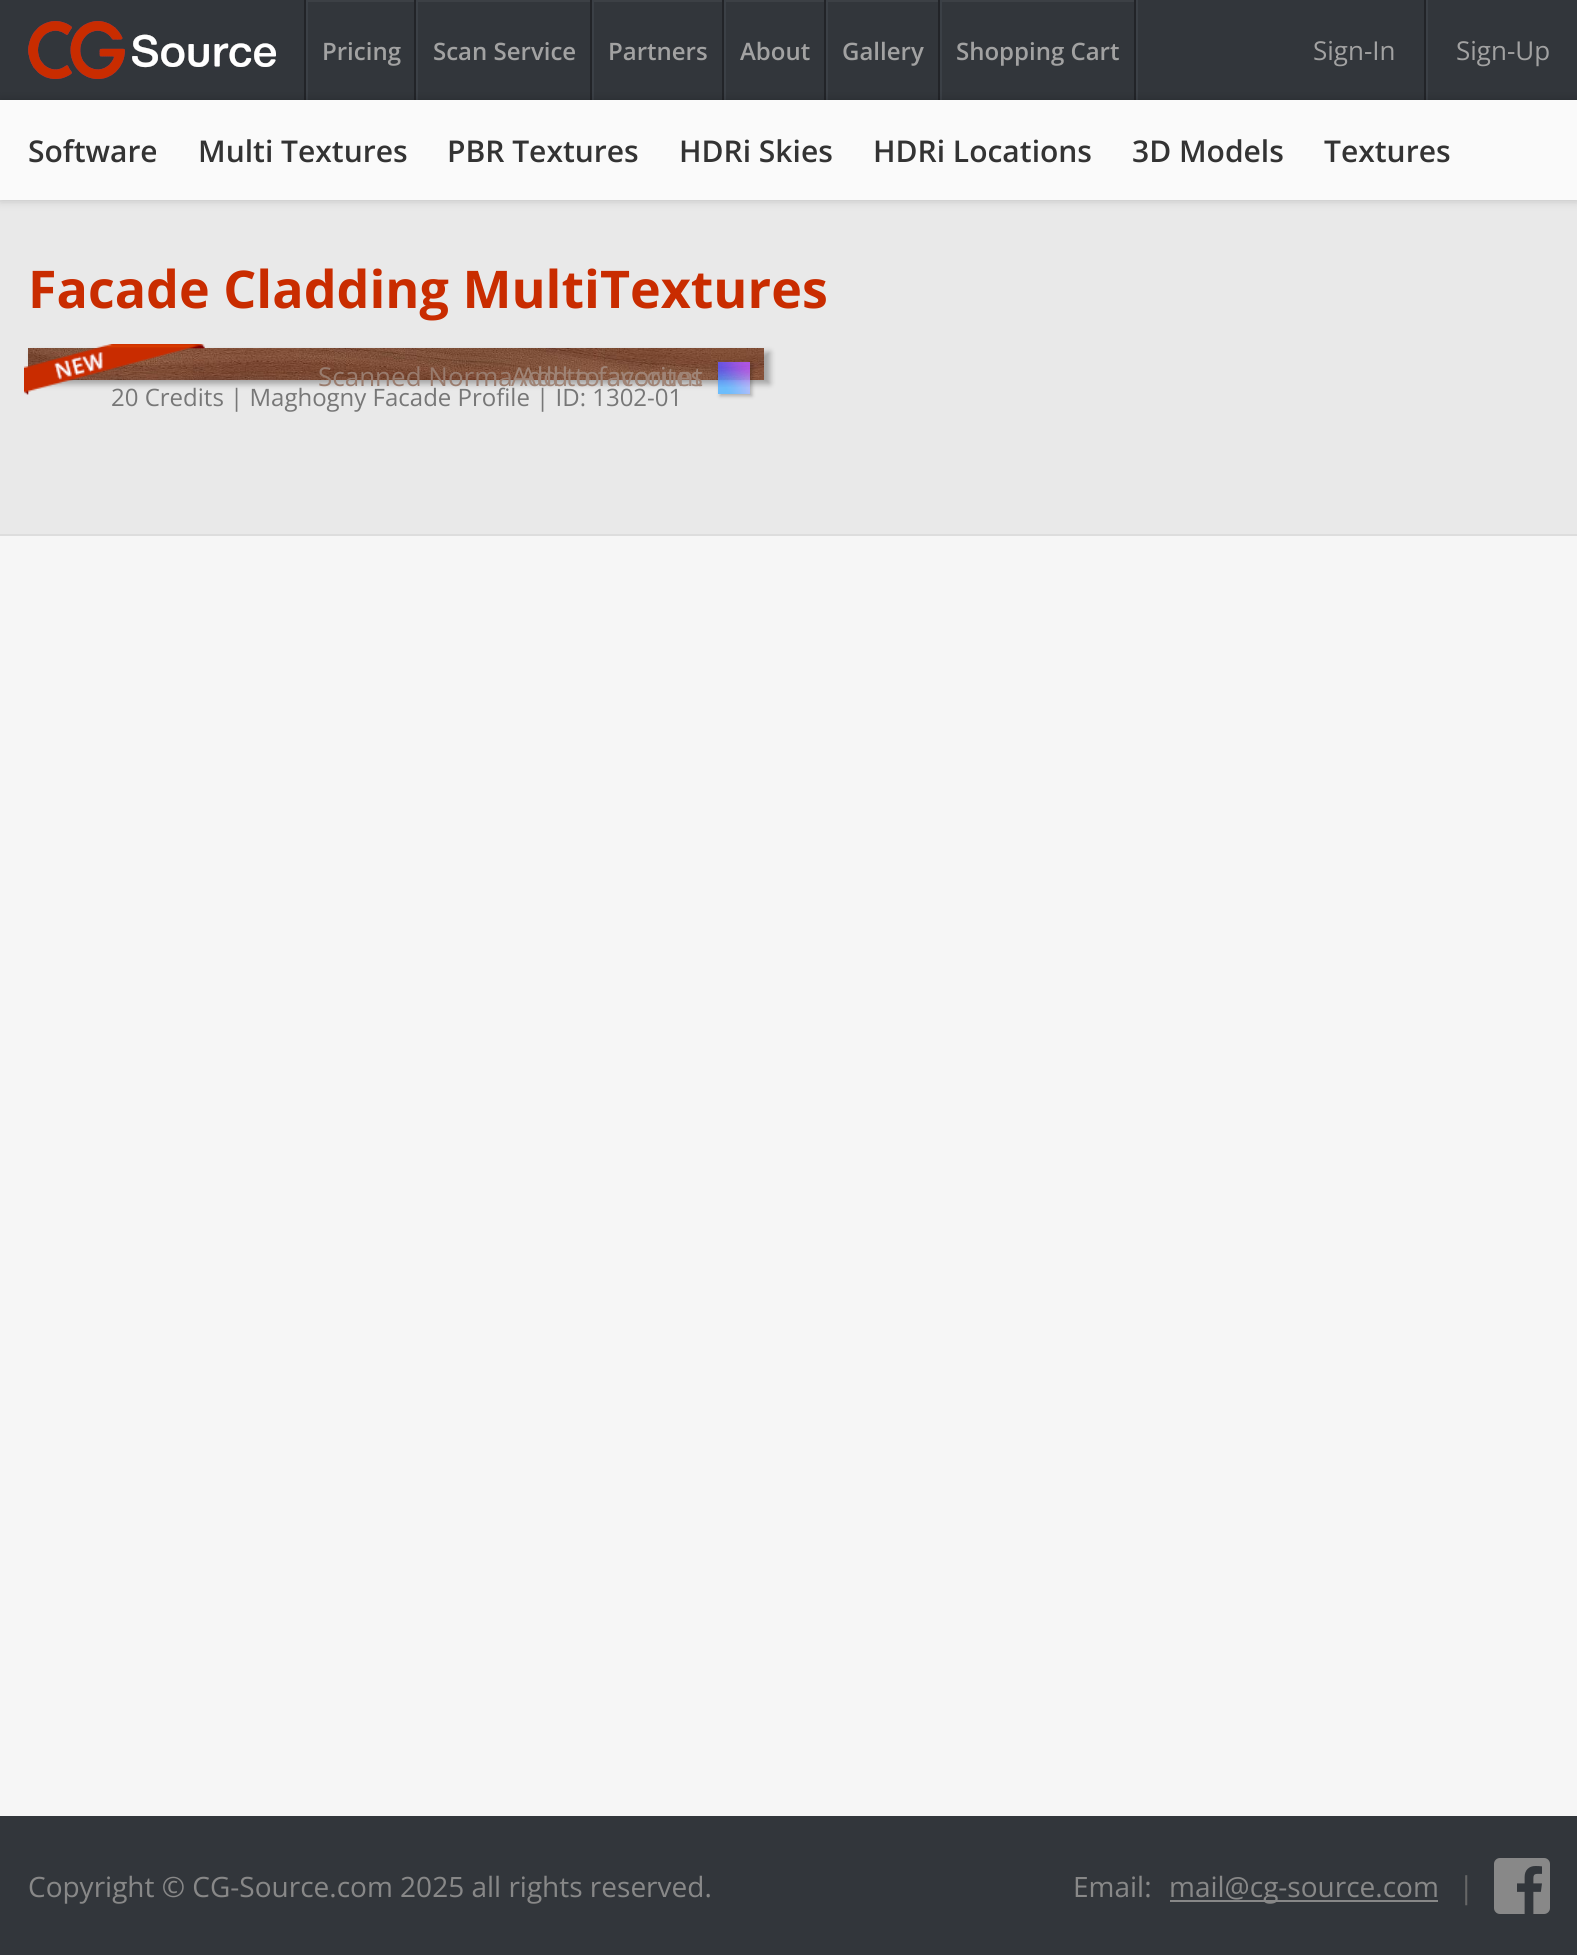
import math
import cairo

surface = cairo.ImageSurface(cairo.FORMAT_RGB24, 1577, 1955)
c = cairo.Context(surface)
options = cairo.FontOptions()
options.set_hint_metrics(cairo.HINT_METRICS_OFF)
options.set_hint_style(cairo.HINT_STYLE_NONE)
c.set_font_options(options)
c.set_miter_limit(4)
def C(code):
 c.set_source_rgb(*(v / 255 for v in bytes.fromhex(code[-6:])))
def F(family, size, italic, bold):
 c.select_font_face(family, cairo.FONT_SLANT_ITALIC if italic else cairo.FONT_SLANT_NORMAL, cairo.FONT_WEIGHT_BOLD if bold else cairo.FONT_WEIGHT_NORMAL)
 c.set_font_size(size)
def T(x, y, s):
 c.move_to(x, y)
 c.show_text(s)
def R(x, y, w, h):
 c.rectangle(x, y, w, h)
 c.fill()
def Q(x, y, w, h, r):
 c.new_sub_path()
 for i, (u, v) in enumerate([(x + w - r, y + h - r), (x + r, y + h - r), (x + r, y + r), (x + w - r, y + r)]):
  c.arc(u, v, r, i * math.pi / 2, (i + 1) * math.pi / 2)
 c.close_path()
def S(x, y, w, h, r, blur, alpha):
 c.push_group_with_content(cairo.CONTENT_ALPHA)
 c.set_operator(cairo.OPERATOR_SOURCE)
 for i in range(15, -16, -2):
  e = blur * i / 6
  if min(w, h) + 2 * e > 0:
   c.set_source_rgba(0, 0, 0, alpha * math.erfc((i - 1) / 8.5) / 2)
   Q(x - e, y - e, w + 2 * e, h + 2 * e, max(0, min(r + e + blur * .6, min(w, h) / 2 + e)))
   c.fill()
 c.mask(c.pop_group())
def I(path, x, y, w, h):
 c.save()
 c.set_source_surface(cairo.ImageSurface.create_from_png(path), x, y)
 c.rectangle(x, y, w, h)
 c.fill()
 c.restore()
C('f6f6f6')
c.paint()
C('32363b')
R(0,0,1577,100)
I('1.png',28,21,248,58)
C('3b4046')
R(306,0,2,100)
C('222428')
R(304,0,2,100)
C('3c4045')
R(308,0,106,2)
F('Open Sans SemiBold',24,0,0)
C('a2a2a2')
T(322,60,'Pricing')
C('3b4046')
R(416,0,2,100)
C('222428')
R(414,0,2,100)
C('3c4045')
R(418,0,172,2)
C('a2a2a2')
T(433,60,'Scan Service')
C('3b4046')
R(592,0,2,100)
C('222428')
R(590,0,2,100)
C('3c4045')
R(594,0,128,2)
C('a2a2a2')
T(608,60,'Partners')
C('3b4046')
R(724,0,2,100)
C('222428')
R(722,0,2,100)
C('3c4045')
R(726,0,98,2)
C('a2a2a2')
T(740,60,'About')
C('3b4046')
R(826,0,2,100)
C('222428')
R(824,0,2,100)
C('3c4045')
R(828,0,110,2)
C('a2a2a2')
T(842,60,'Gallery')
C('3b4046')
R(940,0,2,100)
C('222428')
R(938,0,2,100)
C('3c4045')
R(942,0,192,2)
C('a2a2a2')
T(956,60,'Shopping Cart')
C('3b4046')
R(1136,0,2,100)
C('222428')
R(1134,0,2,100)
F('Open Sans',26,0,0)
C('a2a2a2')
T(1313,60,'Sign-In')
C('3b4046')
R(1426,0,2,100)
C('222428')
R(1424,0,2,100)
C('a2a2a2')
T(1456,60,'Sign-Up')
C('e9e9e9')
R(0,200,1577,334)
C('000000')
S(0,100,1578,100,0,5,.2)
C('fafafa')
R(0,100,1577,100)
F('Open Sans SemiBold',30,0,0)
C('333333')
T(28,162,'Software')
T(198,162,'Multi Textures')
T(447,162,'PBR Textures')
T(679,162,'HDRi Skies')
T(873,162,'HDRi Locations')
T(1132,162,'3D Models')
T(1324,162,'Textures')
C('dddddd')
R(0,534,1577,2)
F('Open Sans',52,0,1)
C('c92c00')
T(28,308,'Facade Cladding MultiTextures')
C('000000')
S(32,352,738,32,0,3,.3)
I('3.png',28,348,736,32)
F('Open Sans',24,0,0)
C('777777')
T(111,406,'20 Credits | Maghogny Facade Profile | ID: 1302-01')
I('2.png',24,344,181,51)
c.save()
c.set_fill_rule(cairo.FILL_RULE_EVEN_ODD)
c.new_path()
c.move_to(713,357)
c.line_to(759,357)
c.line_to(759,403)
c.line_to(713,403)
c.close_path()
c.move_to(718,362)
c.line_to(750,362)
c.line_to(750,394)
c.line_to(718,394)
c.close_path()
c.clip()
C('000000')
S(720,364,32,32,0,2,.26)
c.restore()
F('Open Sans',26,0,0)
C('997c6e')
T(318,386,'Scanned Norma')
C('9f8476')
T(520,386,'Add to account')
T(511,386,'Add to favorites')
I('4.png',718,362,32,32)
C('32363b')
R(0,1816,1577,139)
F('Open Sans',28,0,0)
C('888888')
T(28,1897,'Copyright © CG-Source.com 2025 all rights reserved.')
T(1073,1897,'Email:')
R(1170,1900,268,2)
T(1169,1897,'mail@cg-source.com')
F('Open Sans',30,0,0)
C('666666')
T(1458,1898,'|')
I('5.png',1494,1858,56,56)
surface.write_to_png('o.png')
